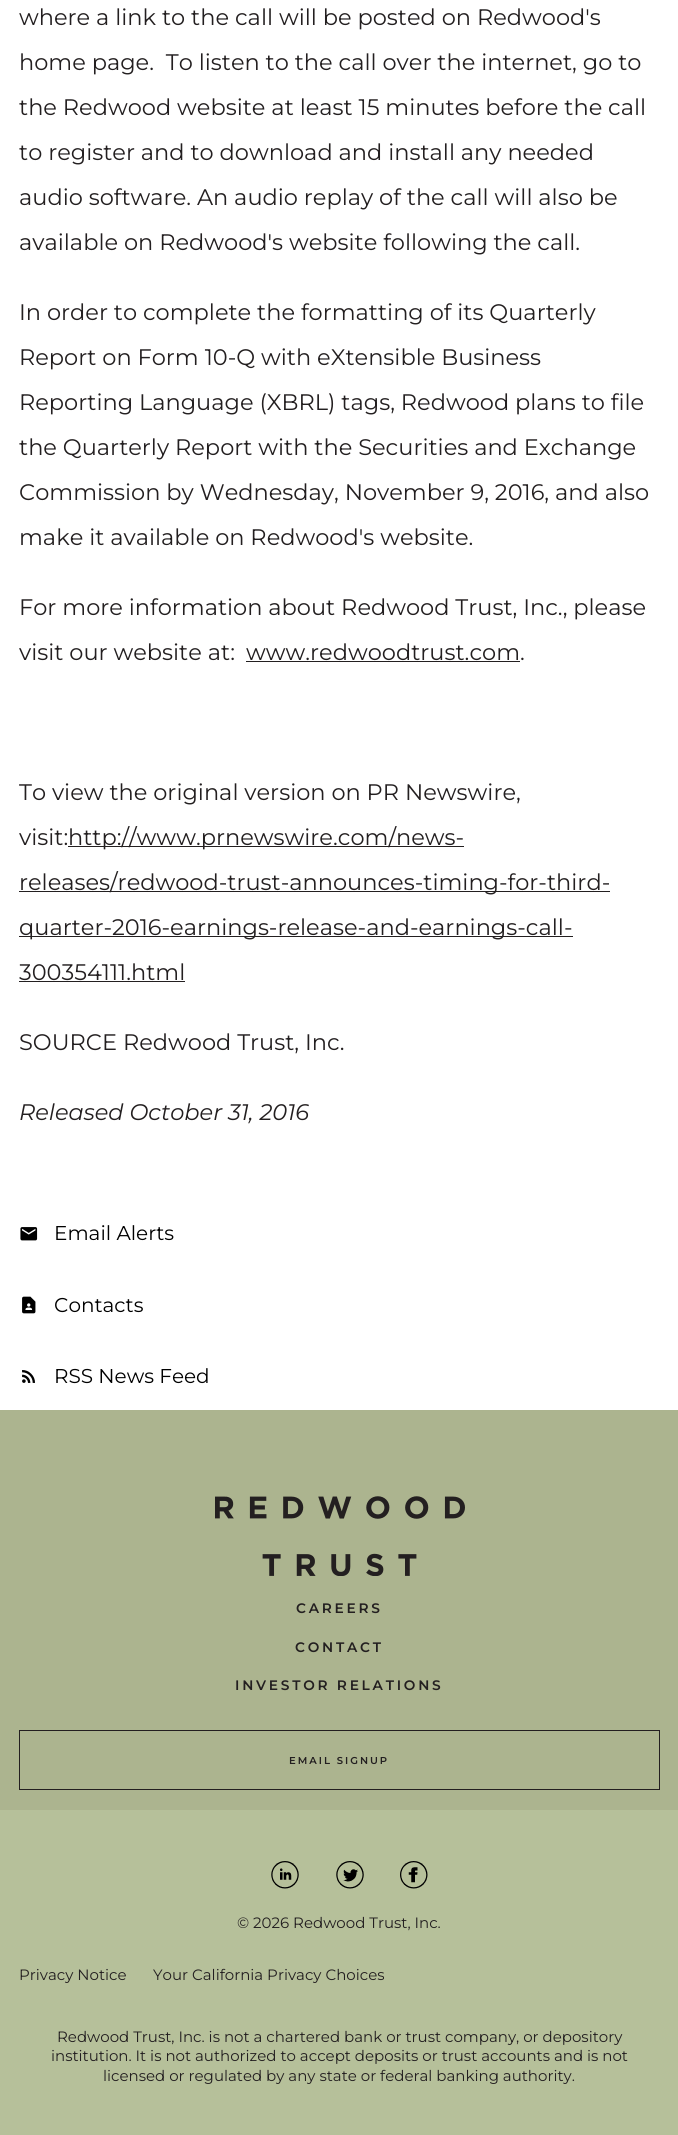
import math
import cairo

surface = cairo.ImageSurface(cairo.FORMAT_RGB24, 678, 2135)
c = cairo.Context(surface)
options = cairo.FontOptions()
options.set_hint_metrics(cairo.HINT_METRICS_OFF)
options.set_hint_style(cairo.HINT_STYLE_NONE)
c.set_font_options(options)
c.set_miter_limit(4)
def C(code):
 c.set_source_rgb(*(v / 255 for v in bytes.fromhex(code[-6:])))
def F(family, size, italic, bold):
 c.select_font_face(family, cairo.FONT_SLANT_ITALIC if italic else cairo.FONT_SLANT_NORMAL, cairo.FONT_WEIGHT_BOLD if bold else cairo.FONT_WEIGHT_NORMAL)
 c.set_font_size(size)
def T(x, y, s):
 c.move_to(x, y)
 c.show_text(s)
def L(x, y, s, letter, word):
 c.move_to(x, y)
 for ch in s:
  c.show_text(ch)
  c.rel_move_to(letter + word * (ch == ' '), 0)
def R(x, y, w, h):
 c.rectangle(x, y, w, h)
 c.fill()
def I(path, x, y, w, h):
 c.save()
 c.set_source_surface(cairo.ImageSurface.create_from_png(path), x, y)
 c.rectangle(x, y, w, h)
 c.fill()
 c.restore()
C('ffffff')
c.paint()
F('Montserrat Thin',22.5,0,0)
C('231f20')
T(19,25,'where a link to the call will be posted on Redwood\'s')
T(19,70,'home page.  To listen to the call over the internet, go to')
T(19,115,'the Redwood website at least 15 minutes before the call')
T(19,160,'to register and to download and install any needed')
T(19,205,'audio software. An audio replay of the call will also be')
T(19,250,'available on Redwood\'s website following the call.')
T(19,320,'In order to complete the formatting of its Quarterly')
T(19,365,'Report on Form 10-Q with eXtensible Business')
T(19,410,'Reporting Language (XBRL) tags, Redwood plans to file')
T(19,455,'the Quarterly Report with the Securities and Exchange')
T(19,500,'Commission by Wednesday, November 9, 2016, and also')
T(19,545,'make it available on Redwood\'s website.')
T(19,615,'For more information about Redwood Trust, Inc., please')
T(19,660,'visit our website at:')
T(246,660,'www.redwoodtrust.com.')
R(246,661,274,1)
T(19,800,'To view the original version on PR Newswire,')
T(19,845,'visit:')
R(68,846,396,1)
T(68,845,'http://www.prnewswire.com/news-')
R(19,891,591,1)
T(19,890,'releases/redwood-trust-announces-timing-for-third-')
R(19,936,554,1)
T(19,935,'quarter-2016-earnings-release-and-earnings-call-')
T(19,980,'300354111.html')
R(19,981,166,1)
T(19,1050,'SOURCE Redwood Trust, Inc.')
F('Montserrat Thin',22.5,1,0)
T(19,1120,'Released October 31, 2016')
I('1.png',20,1227,18,14)
F('Montserrat Thin',20,0,0)
C('000000')
T(54,1240,'Email Alerts')
I('2.png',22,1296,14,18)
T(54,1312,'Contacts')
I('3.png',22,1370,13,13)
T(54,1383,'RSS News Feed')
C('b6c09a')
R(0,1810,678,325)
C('acb48f')
R(0,1410,678,400)
I('4.png',215,1496,250,80)
F('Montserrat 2 Thin',13.75,0,0)
C('231f20')
L(296,1613,'CAREERS',2.75,0)
L(295,1652,'CONTACT',2.75,0)
L(235,1690,'INVESTOR RELATIONS',2.75,0)
c.rectangle(19.5,1730.5,640,59)
c.set_line_width(1)
c.stroke()
F('Montserrat 2 Thin',10,0,0)
L(289,1764,'EMAIL SIGNUP',2,0)
I('5.png',271,1861,28,28)
I('6.png',336,1861,28,28)
I('7.png',400,1861,28,28)
F('Montserrat Thin',15,0,0)
T(237,1928,'© 2026 Redwood Trust, Inc.')
T(19,1980,'Privacy Notice')
T(153,1980,'Your California Privacy Choices')
T(57,2042,'Redwood Trust, Inc. is not a chartered bank or trust company, or depository')
T(51,2061,'institution. It is not authorized to accept deposits or trust accounts and is not')
T(103,2081,'licensed or regulated by any state or federal banking authority.')
surface.write_to_png('o.png')
